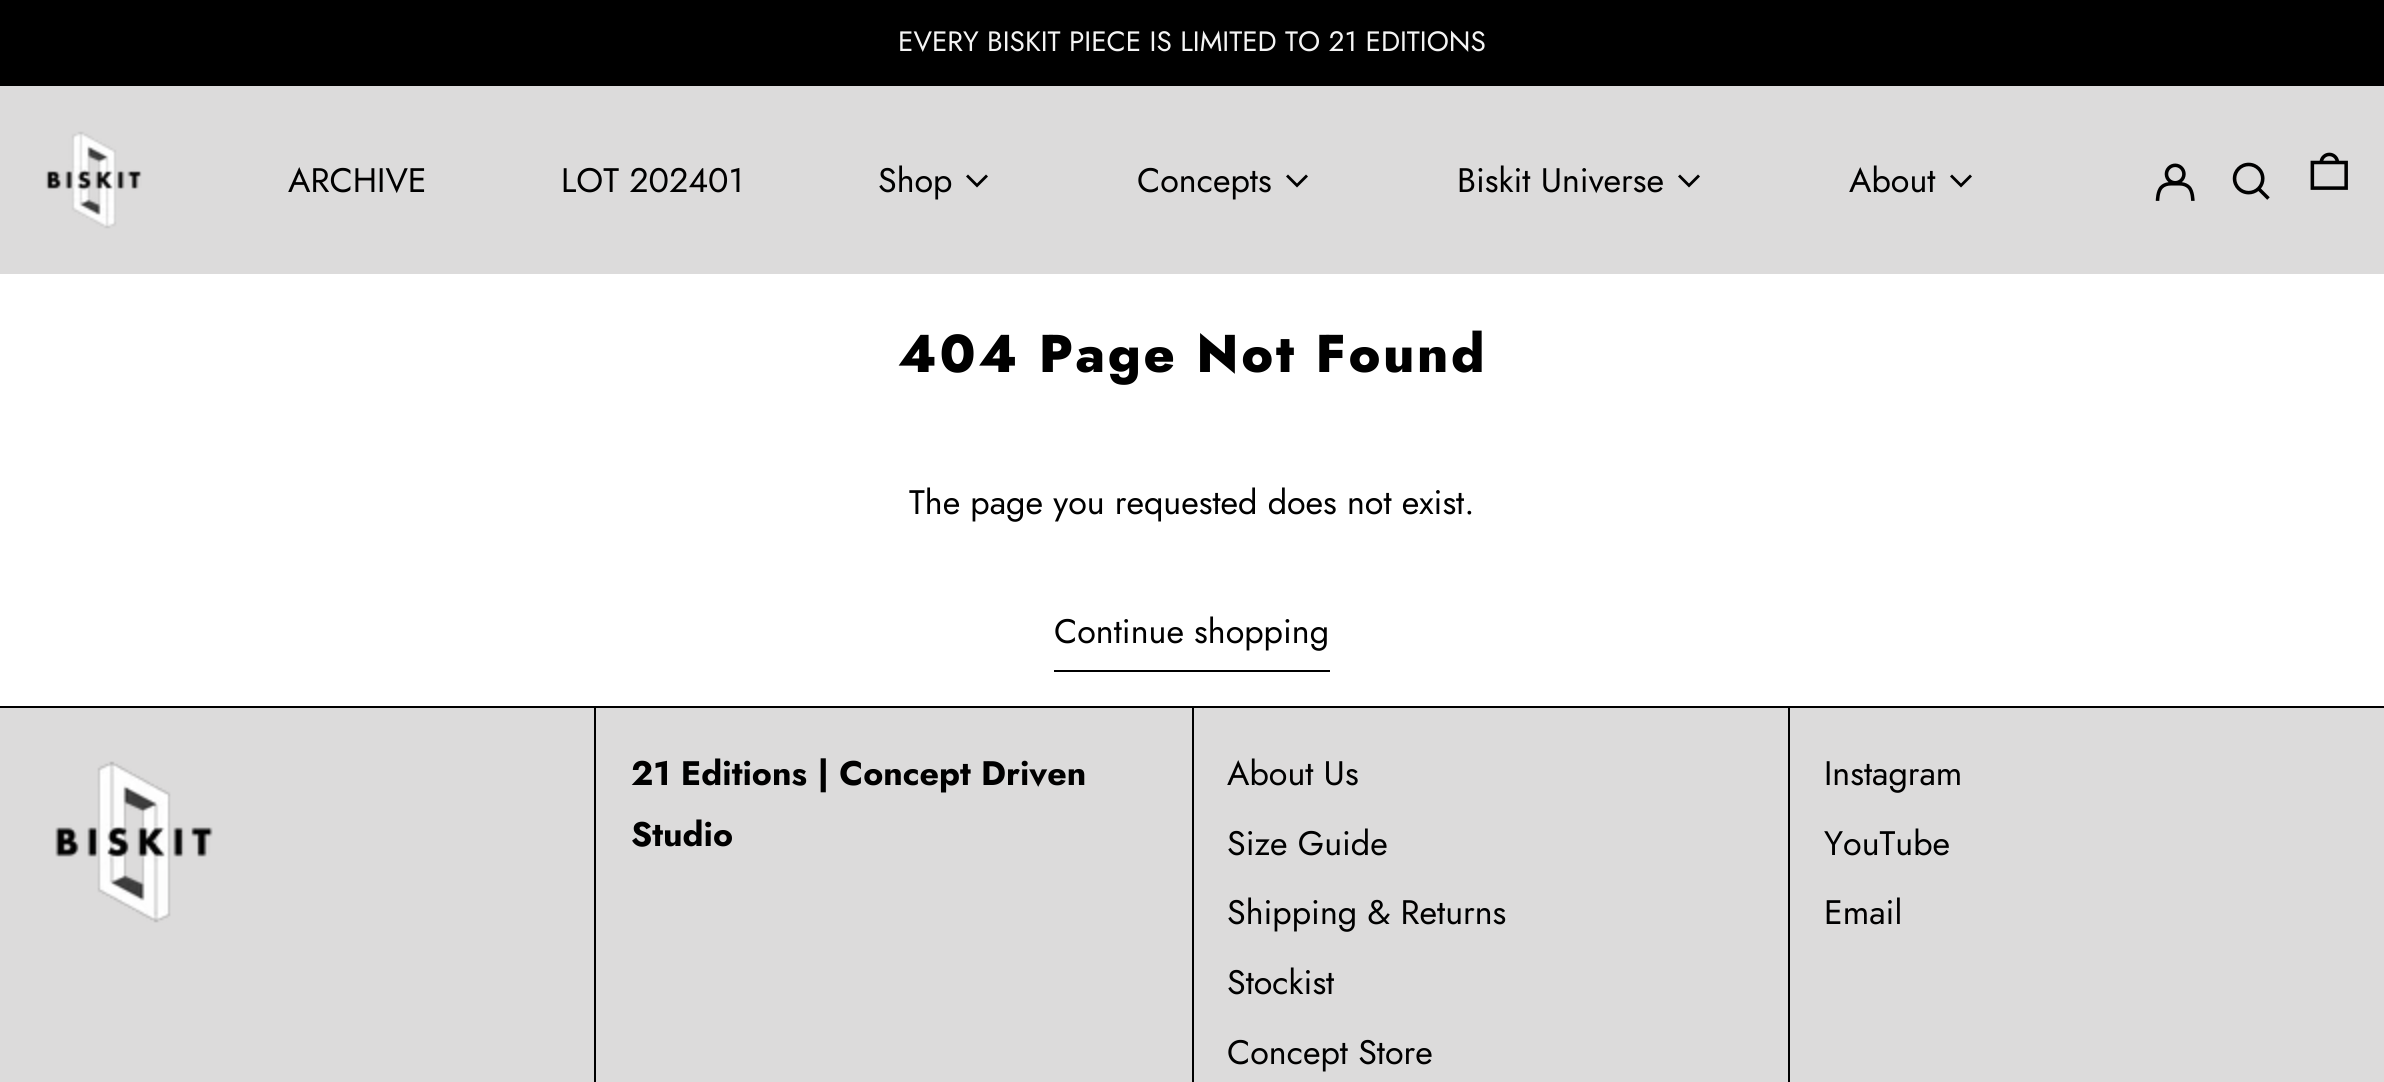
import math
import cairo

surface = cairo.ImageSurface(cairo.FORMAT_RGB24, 2384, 1082)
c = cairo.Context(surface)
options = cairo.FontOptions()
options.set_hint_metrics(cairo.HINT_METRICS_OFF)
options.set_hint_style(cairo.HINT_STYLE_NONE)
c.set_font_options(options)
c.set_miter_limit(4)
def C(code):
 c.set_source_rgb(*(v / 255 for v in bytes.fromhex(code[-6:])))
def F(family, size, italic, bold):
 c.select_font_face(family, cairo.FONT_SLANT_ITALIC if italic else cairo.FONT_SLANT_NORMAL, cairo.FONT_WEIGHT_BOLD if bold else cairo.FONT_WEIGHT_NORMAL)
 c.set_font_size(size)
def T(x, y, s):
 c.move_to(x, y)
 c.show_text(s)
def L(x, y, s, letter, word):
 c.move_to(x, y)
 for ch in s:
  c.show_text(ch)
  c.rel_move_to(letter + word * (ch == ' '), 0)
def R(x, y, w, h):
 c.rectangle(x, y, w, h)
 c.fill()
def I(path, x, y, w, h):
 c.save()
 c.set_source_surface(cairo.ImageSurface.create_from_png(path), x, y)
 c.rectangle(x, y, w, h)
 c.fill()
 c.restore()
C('ffffff')
c.paint()
C('000000')
R(0,0,2384,86)
F('Jost',28,0,0)
C('f4f4f4')
T(898,51,'EVERY BISKIT PIECE IS LIMITED TO 21 EDITIONS')
C('dcdbdb')
R(0,86,2384,188)
I('1.png',45,131,97,98)
F('Jost',34,0,0)
C('000000')
T(288,192,'ARCHIVE')
T(561,192,'LOT 202401')
T(878,192,'Shop')
c.set_fill_rule(cairo.FILL_RULE_EVEN_ODD)
c.new_path()
c.move_to(977,187.5)
c.line_to(966,176.5)
c.line_to(968,174.5)
c.line_to(977,183.5)
c.line_to(986,174.5)
c.line_to(988,176.5)
c.close_path()
c.fill()
T(1137,192,'Concepts')
c.new_path()
c.move_to(1297,187.5)
c.line_to(1286,176.5)
c.line_to(1288,174.5)
c.line_to(1297,183.5)
c.line_to(1306,174.5)
c.line_to(1308,176.5)
c.close_path()
c.fill()
T(1457,192,'Biskit Universe')
c.new_path()
c.move_to(1689,187.5)
c.line_to(1678,176.5)
c.line_to(1680,174.5)
c.line_to(1689,183.5)
c.line_to(1698,174.5)
c.line_to(1700,176.5)
c.close_path()
c.fill()
T(1849,192,'About')
c.new_path()
c.move_to(1961,187.5)
c.line_to(1950,176.5)
c.line_to(1952,174.5)
c.line_to(1961,183.5)
c.line_to(1970,174.5)
c.line_to(1972,176.5)
c.close_path()
c.fill()
I('2.png',2155,163,40,38)
I('3.png',2232,162,38,38)
I('4.png',2310,152,38,38)
F('Jost ExtraBold',53.1,0,0)
L(898,372,'404 Page Not Found',2.7,0)
F('Jost',34,0,0)
T(909,514,'The page you requested does not exist.')
R(1054,670,276,2)
T(1054,643,'Continue shopping')
R(0,706,2384,2)
R(594,708,1196,374)
C('dcdbdb')
R(0,708,594,374)
I('5.png',55,761,158,162)
R(596,708,596,374)
F('Jost',34,0,1)
C('000000')
T(631,785,'21 Editions | Concept Driven')
T(631,846,'Studio')
C('dcdbdb')
R(1194,708,594,374)
F('Jost',34,0,0)
C('000000')
T(1227,785,'About Us')
T(1227,855,'Size Guide')
T(1227,924,'Shipping & Returns')
T(1227,994,'Stockist')
T(1227,1064,'Concept Store')
C('dcdbdb')
R(1790,708,594,374)
C('000000')
T(1824,785,'Instagram')
T(1824,855,'YouTube')
T(1824,924,'Email')
surface.write_to_png('o.png')
